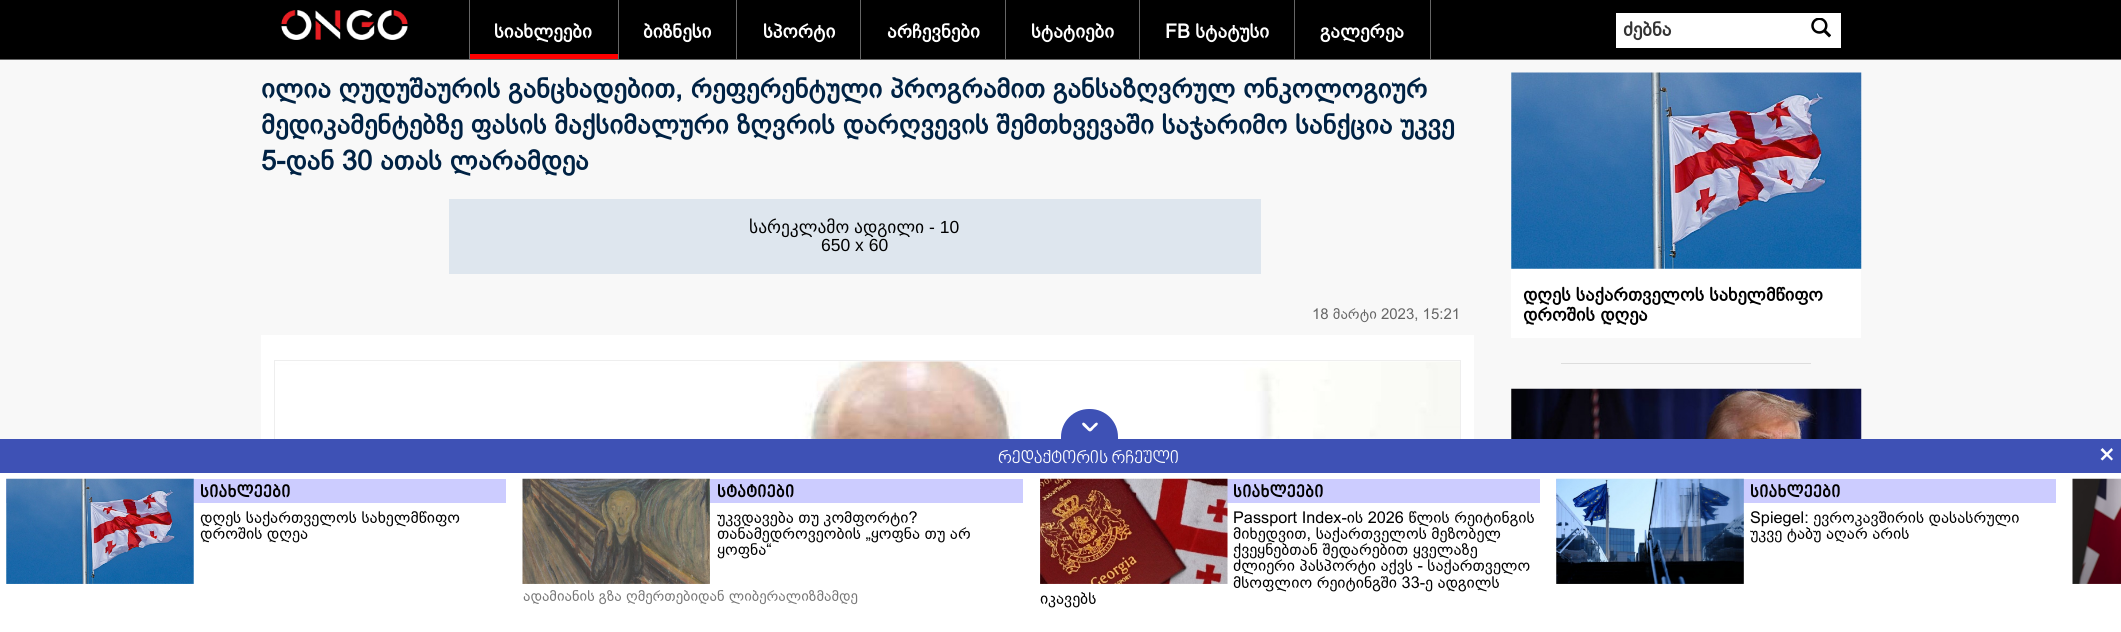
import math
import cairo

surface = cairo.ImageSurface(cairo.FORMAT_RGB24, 2121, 632)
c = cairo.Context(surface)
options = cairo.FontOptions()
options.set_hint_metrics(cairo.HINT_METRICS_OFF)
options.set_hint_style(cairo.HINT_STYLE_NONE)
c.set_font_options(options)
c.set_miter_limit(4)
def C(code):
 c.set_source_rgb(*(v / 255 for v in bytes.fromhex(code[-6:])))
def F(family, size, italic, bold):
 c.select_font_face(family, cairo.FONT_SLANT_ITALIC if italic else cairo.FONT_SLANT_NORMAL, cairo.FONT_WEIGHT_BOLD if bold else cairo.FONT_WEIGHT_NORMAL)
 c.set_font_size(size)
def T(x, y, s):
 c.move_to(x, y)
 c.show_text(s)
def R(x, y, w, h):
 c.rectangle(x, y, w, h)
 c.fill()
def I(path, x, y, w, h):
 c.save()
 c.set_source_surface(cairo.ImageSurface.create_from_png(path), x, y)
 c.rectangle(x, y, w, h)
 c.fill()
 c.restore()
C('f8f8f8')
c.paint()
C('000000')
R(0,0,2121,59)
C('666666')
R(0,59,2121,1)
I('1.png',281,10,127,30)
R(1430,0,1,59)
R(469,0,1,59)
C('ff0000')
R(470,54,148,5)
F('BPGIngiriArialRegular',19.5,0,1)
C('ffffff')
T(494,38,'სიახლეები')
C('666666')
R(618,0,1,59)
C('ffffff')
T(643,38,'ბიზნესი')
C('666666')
R(736,0,1,59)
C('ffffff')
T(763,38,'სპორტი')
C('666666')
R(860,0,1,59)
C('ffffff')
T(887,38,'არჩევნები')
C('666666')
R(1005,0,1,59)
C('ffffff')
T(1031,38,'სტატიები')
C('666666')
R(1139,0,1,59)
C('ffffff')
T(1165,38,'FB სტატუსი')
C('666666')
R(1294,0,1,59)
C('ffffff')
T(1320,38,'გალერეა')
R(1616,13,225,35)
C('333333')
T(1623,36,'ძებნა')
I('2.png',1811,18,20,20)
F('BPGIngiriArialRegular',27.5,0,1)
C('002244')
T(261,98,'ილია ღუდუშაურის განცხადებით, რეფერენტული პროგრამით განსაზღვრულ ონკოლოგიურ')
T(261,134,'მედიკამენტებზე ფასის მაქსიმალური ზღვრის დარღვევის შემთხვევაში საჯარიმო სანქცია უკვე')
T(261,170,'5-დან 30 ათას ლარამდეა')
C('dee6ee')
R(449,199,812,75)
F('DejaVu Sans',17.5,0,0)
C('000000')
T(749,233,'სარეკლამო')
T(854,233,'ადგილი')
F('Liberation Sans',17.5,0,0)
T(929,233,'- 10')
T(821,251,'650 x 60')
F('BPGIngiriArialRegular',15,0,0)
C('666666')
T(1312,319,'18 მარტი 2023, 15:21')
C('ffffff')
R(261,335,1213,104)
c.rectangle(274.5,360.5,1186,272)
C('eeeeee')
c.set_line_width(1)
c.stroke()
I('3.png',275,361,1185,78)
C('ffffff')
R(1511,73,350,265)
I('4.png',1511,72,351,197)
F('BPGIngiriArialRegular',18.75,0,1)
C('000000')
T(1523,301,'დღეს საქართველოს სახელმწიფო')
T(1523,321,'დროშის დღეა')
C('dddddd')
R(1561,363,250,1)
I('5.png',1511,388,351,51)
C('3e51b5')
R(0,439,2121,34)
c.new_path()
c.move_to(1089,409)
c.line_to(1090,409)
c.curve_to(1105.5,409,1118,421.5,1118,437)
c.line_to(1118,440)
c.line_to(1061,440)
c.line_to(1061,437)
c.curve_to(1061,421.5,1073.5,409,1089,409)
c.close_path()
c.fill()
C('ffffff')
c.new_path()
c.move_to(1097.5,423)
c.curve_to(1099,424.5,1095,427,1094,428)
c.curve_to(1093.5,428.5,1091,432.5,1089.5,431)
c.curve_to(1088,429.5,1091.5,427,1092.5,426)
c.curve_to(1093.5,425,1096,421.5,1097.5,423)
c.close_path()
c.fill()
c.new_path()
c.move_to(1082.5,423)
c.curve_to(1084,421.5,1086.5,425,1087.5,426)
c.curve_to(1088,427,1092,429.5,1090.5,431)
c.curve_to(1089,432.5,1086.5,428.5,1085.5,428)
c.curve_to(1084.5,427,1081,424.5,1082.5,423)
c.close_path()
c.fill()
F('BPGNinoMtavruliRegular',17.5,1,0)
T(998,464,'რედაქტორის რჩეული')
c.new_path()
c.move_to(2111.5,448)
c.line_to(2113,450)
c.line_to(2102.5,460.5)
c.line_to(2100.5,459)
c.close_path()
c.fill()
c.new_path()
c.move_to(2100.5,450)
c.line_to(2102.5,448)
c.line_to(2113,459)
c.line_to(2111.5,460.5)
c.close_path()
c.fill()
R(0,473,2121,159)
C('ccccff')
R(6,479,500,24)
I('6.png',6,478,188,106)
F('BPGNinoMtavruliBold',17.5,1,1)
C('000000')
T(200,498,'სიახლეები')
F('BPGIngiriArialRegular',16.25,0,0)
T(200,523,'დღეს საქართველოს სახელმწიფო')
T(200,539,'დროშის დღეა')
C('ccccff')
R(709,479,314,24)
I('7.png',522,478,188,106)
F('BPGNinoMtavruliBold',17.5,1,1)
C('000000')
T(717,498,'სტატიები')
F('BPGIngiriArialRegular',16.25,0,0)
T(717,523,'უკვდავება თუ კომფორტი?')
T(717,539,'თანამედროვეობის „ყოფნა თუ არ')
T(717,555,'ყოფნა“')
F('BPGIngiriArialRegular',15,0,0)
C('777777')
T(523,601,'ადამიანის გზა ღმერთებიდან ლიბერალიზმამდე')
C('ccccff')
R(1040,479,500,24)
I('8.png',1040,478,188,106)
F('BPGNinoMtavruliBold',17.5,1,1)
C('000000')
T(1233,498,'სიახლეები')
F('BPGIngiriArialRegular',16.25,0,0)
T(1233,523,'Passport Index-ის 2026 წლის რეიტინგის')
T(1233,539,'მიხედვით, საქართველოს მეზობელ')
T(1233,555,'ქვეყნებთან შედარებით ყველაზე')
T(1233,571,'ძლიერი პასპორტი აქვს - საქართველო')
T(1233,588,'მსოფლიო რეიტინგში 33-ე ადგილს')
T(1040,604,'იკავებს')
C('ccccff')
R(1556,479,500,24)
I('9.png',1556,478,188,106)
F('BPGNinoMtavruliBold',17.5,1,1)
C('000000')
T(1750,498,'სიახლეები')
F('BPGIngiriArialRegular',16.25,0,0)
T(1750,523,'Spiegel: ევროკავშირის დასასრული')
T(1750,539,'უკვე ტაბუ აღარ არის')
I('10.png',2072,478,49,106)
surface.write_to_png('o.png')
